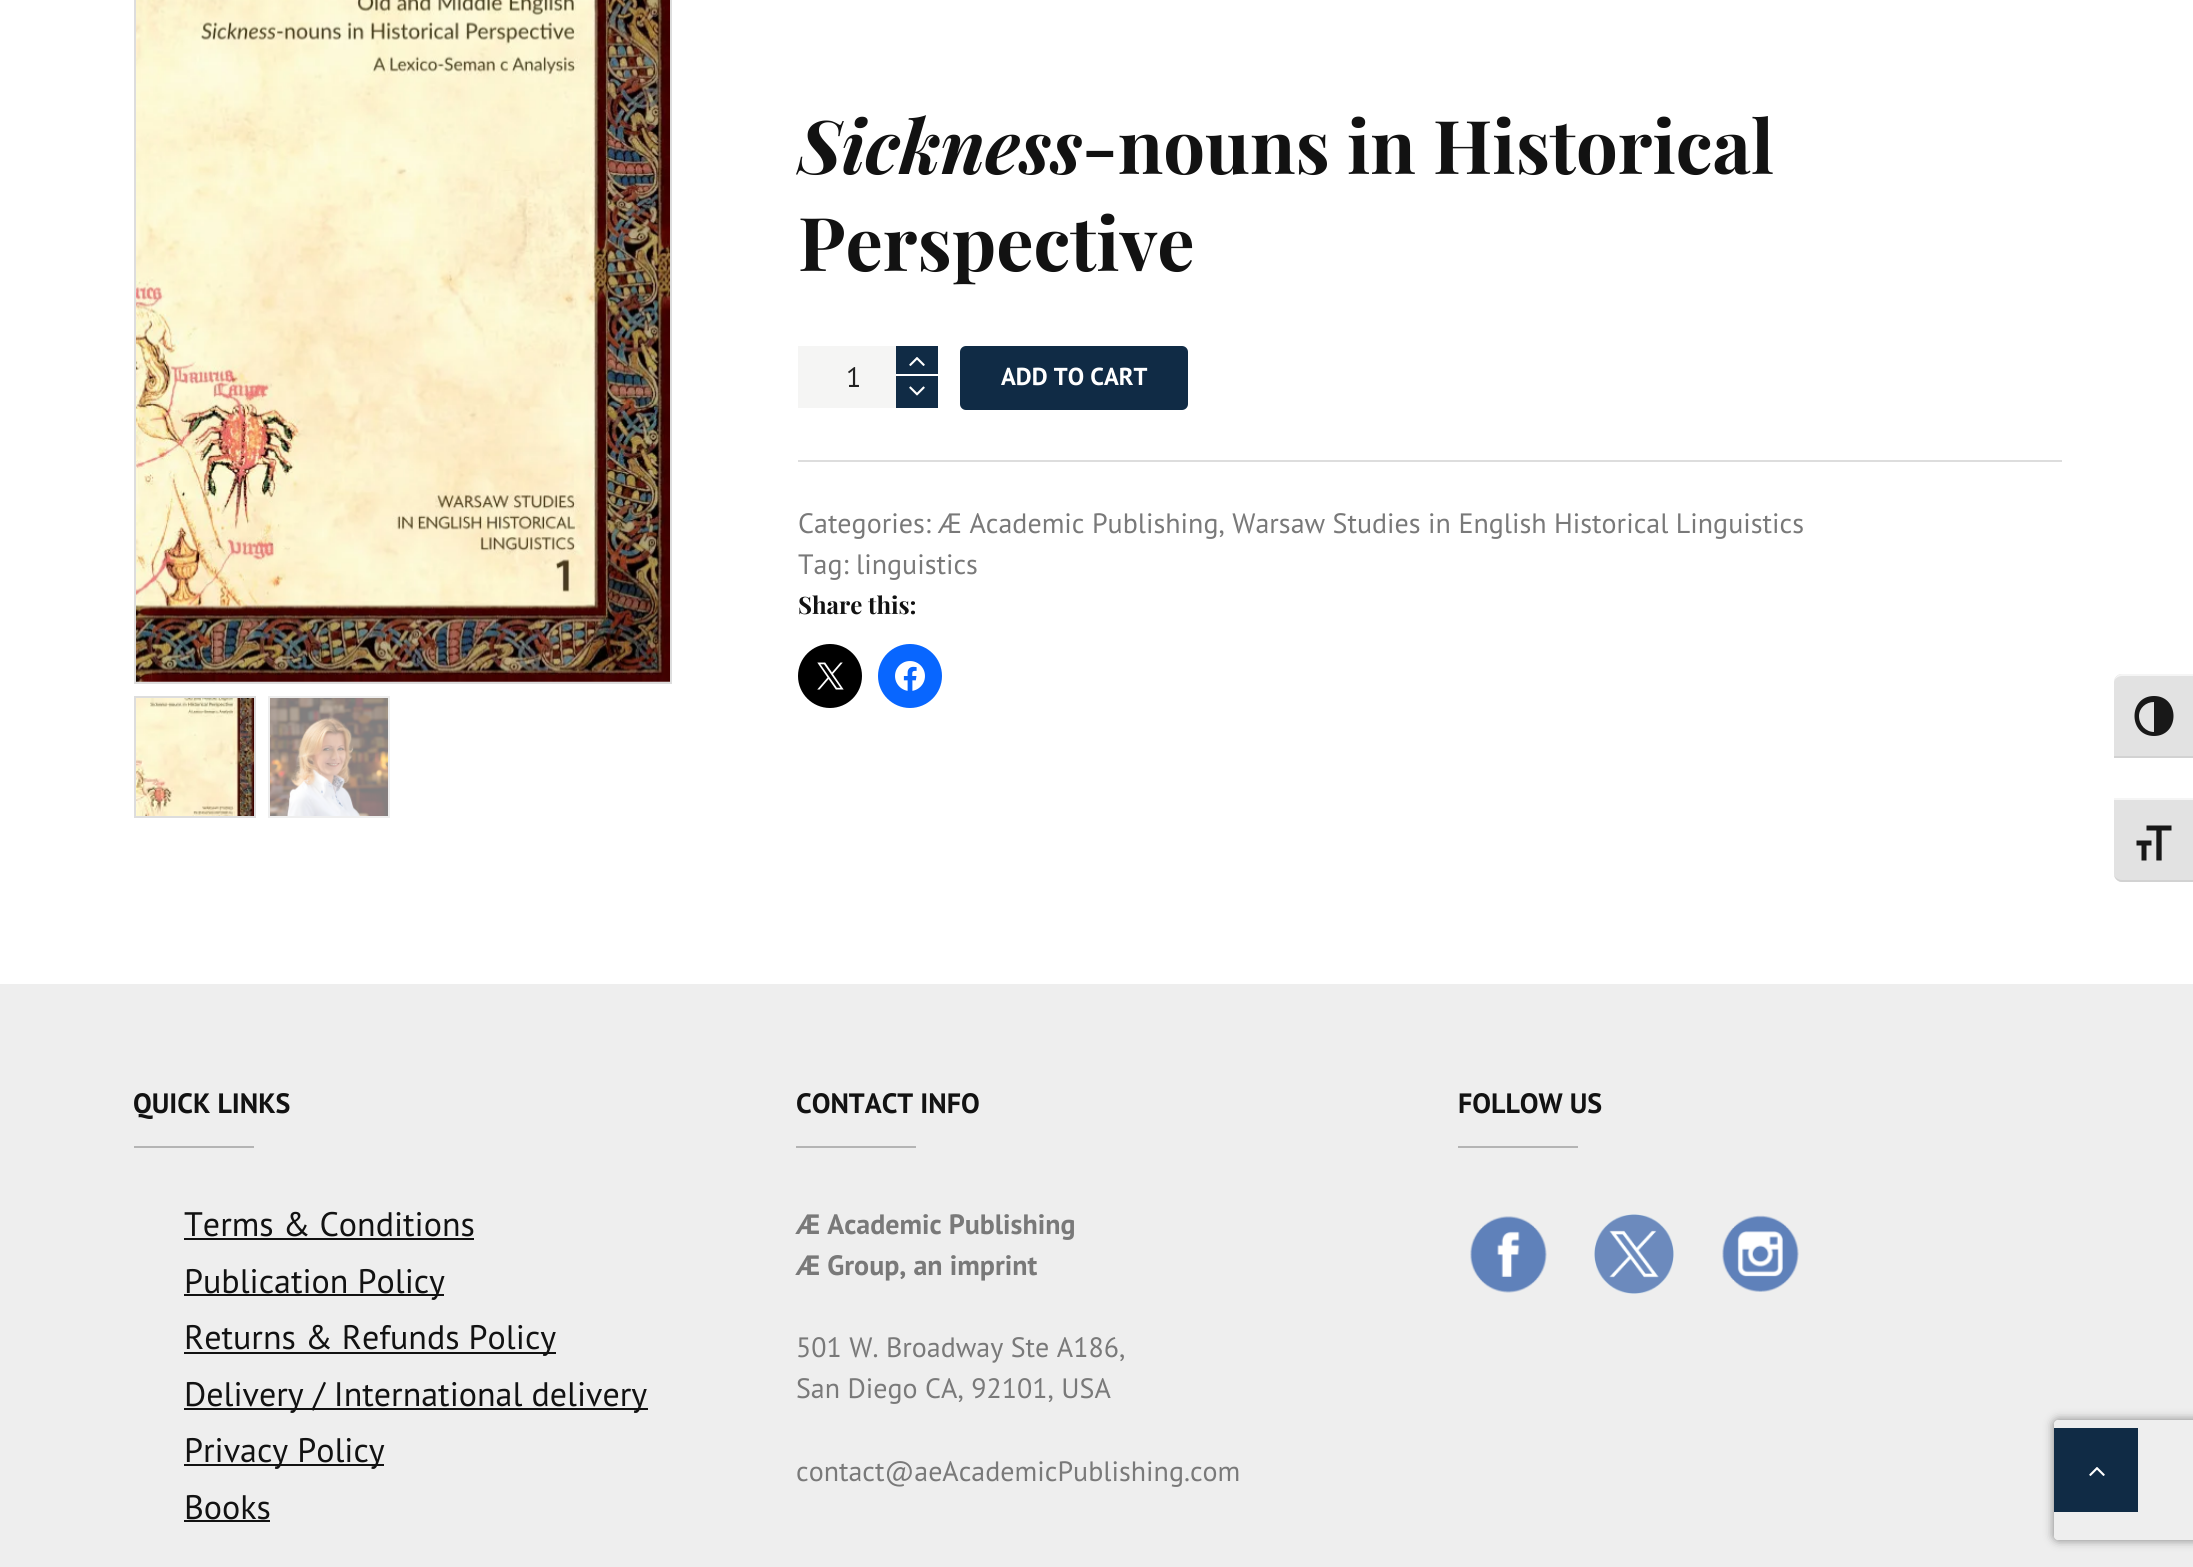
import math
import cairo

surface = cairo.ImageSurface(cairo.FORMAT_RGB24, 2193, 1567)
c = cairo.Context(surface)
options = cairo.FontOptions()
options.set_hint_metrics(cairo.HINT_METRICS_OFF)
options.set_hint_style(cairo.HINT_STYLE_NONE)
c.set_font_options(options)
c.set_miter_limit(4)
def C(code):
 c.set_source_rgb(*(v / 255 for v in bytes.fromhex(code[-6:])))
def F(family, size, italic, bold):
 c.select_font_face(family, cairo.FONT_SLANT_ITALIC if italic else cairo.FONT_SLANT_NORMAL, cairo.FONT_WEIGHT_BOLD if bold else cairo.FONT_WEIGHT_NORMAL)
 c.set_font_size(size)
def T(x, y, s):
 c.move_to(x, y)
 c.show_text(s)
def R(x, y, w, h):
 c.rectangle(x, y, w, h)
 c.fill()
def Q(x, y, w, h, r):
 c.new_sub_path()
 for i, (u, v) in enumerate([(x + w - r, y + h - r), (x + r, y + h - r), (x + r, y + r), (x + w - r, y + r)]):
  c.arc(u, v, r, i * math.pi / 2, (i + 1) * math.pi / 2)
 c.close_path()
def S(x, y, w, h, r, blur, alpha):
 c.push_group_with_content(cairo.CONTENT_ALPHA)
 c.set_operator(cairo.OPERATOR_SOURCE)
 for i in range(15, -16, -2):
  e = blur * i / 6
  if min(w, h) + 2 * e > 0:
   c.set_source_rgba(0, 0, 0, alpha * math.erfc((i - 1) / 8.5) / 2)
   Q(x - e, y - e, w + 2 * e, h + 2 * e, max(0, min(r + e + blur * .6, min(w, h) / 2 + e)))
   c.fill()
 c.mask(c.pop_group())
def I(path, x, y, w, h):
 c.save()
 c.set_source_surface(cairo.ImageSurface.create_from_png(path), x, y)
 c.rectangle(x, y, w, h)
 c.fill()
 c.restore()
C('ffffff')
c.paint()
c.rectangle(135,-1,536,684)
C('dddddd')
c.stroke()
I('1.png',136,0,534,682)
c.rectangle(135,697,120,120)
c.stroke()
I('2.png',136,698,118,118)
c.rectangle(269,697,120,120)
C('eeeeee')
c.stroke()
I('3.png',270,698,118,118)
F('Playfair Display',74.1,1,1)
C('121212')
T(798,174,'Sickness')
F('Playfair Display',74.1,0,1)
T(1082,174,'-nouns in Historical')
T(798,271,'Perspective')
C('dddddd')
R(798,460,1264,2)
C('102b45')
R(896,346,42,28)
I('4.png',909,357,16,9)
C('f5f5f4')
R(798,346,98,62)
F('PT Sans',28,0,0)
C('222222')
T(846,387,'1')
C('102b45')
R(896,376,42,32)
I('5.png',909,386,16,10)
Q(960,346,228,64,6)
c.fill()
F('PT Sans',24.5,0,1)
C('ffffff')
T(1001,385,'ADD TO CART')
F('PT Sans',28,0,0)
C('797979')
T(798,533,'Categories: Æ Academic Publishing, Warsaw Studies in English Historical Linguistics')
T(798,574,'Tag: linguistics')
F('Playfair Display',24,0,1)
C('121212')
T(798,614,'Share this:')
C('000000')
c.new_path()
c.arc(830,676,32,0,2 * math.pi)
c.fill()
I('6.png',817,662,27,28)
C('0866ff')
c.arc(910,676,32,0,2 * math.pi)
c.fill()
I('7.png',895,661,30,30)
C('eeeeee')
R(0,984,2193,583)
F('PT Sans',28,0,1)
C('121212')
T(133,1113,'QUICK LINKS')
C('b4b4b4')
R(134,1146,120,2)
F('PT Sans',34,0,0)
C('121212')
T(184,1236,'Terms & Conditions')
R(184,1238,290,2)
R(184,1294,260,2)
T(184,1293,'Publication Policy')
R(184,1352,372,2)
T(184,1349,'Returns & Refunds Policy')
R(184,1408,464,2)
T(184,1406,'Delivery / International delivery')
R(184,1464,200,2)
T(184,1462,'Privacy Policy')
T(184,1519,'Books')
R(184,1520,86,2)
F('PT Sans',28,0,1)
T(796,1113,'CONTACT INFO')
C('b4b4b4')
R(796,1146,120,2)
C('797979')
T(796,1234,'Æ Academic Publishing')
T(796,1275,'Æ Group, an imprint')
F('PT Sans',28,0,0)
T(796,1357,'501 W. Broadway Ste A186,')
T(796,1398,'San Diego CA, 92101, USA')
T(796,1481,'contact@aeAcademicPublishing.com')
F('PT Sans',28,0,1)
C('121212')
T(1458,1113,'FOLLOW US')
C('b4b4b4')
R(1458,1146,120,2)
I('8.png',1470,1216,77,77)
I('9.png',1594,1214,80,80)
I('10.png',1722,1215,77,77)
C('e2e2e2')
c.new_path()
c.move_to(2122,674)
c.line_to(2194,674)
c.line_to(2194,758)
c.line_to(2114,758)
c.line_to(2114,682)
c.curve_to(2114,677.5,2117.5,674,2122,674)
c.close_path()
c.fill()
C('f5f5f5')
c.new_path()
c.move_to(2122,676)
c.line_to(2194,676)
c.line_to(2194,674)
c.line_to(2122,674)
c.curve_to(2118,674,2114,678,2114,682)
c.curve_to(2114,679,2118,676,2122,676)
c.close_path()
c.fill()
C('d2d2d2')
R(2114,756,79,2)
C('181818')
c.new_path()
c.move_to(2154,696)
c.curve_to(2128,696,2128,736,2154,736)
c.curve_to(2180,736,2180,696,2154,696)
c.close_path()
c.move_to(2139,716)
c.curve_to(2139,708,2146,702,2154,702)
c.line_to(2154,732)
c.curve_to(2146,732,2139,725,2139,716)
c.close_path()
c.fill()
C('e2e2e2')
c.new_path()
c.move_to(2114,798)
c.line_to(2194,798)
c.line_to(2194,882)
c.line_to(2122,882)
c.curve_to(2117.5,882,2114,878.5,2114,874)
c.close_path()
c.fill()
C('f5f5f5')
R(2114,798,79,2)
C('d2d2d2')
c.new_path()
c.move_to(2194,882)
c.line_to(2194,880)
c.line_to(2122,880)
c.curve_to(2118,880,2114,877,2114,874)
c.curve_to(2114,878,2118,882,2122,882)
c.close_path()
c.fill()
I('11.png',2136,825,36,36)
c.save()
c.set_fill_rule(cairo.FILL_RULE_EVEN_ODD)
c.new_path()
c.move_to(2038,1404)
c.line_to(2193,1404)
c.line_to(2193,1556)
c.line_to(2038,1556)
c.close_path()
c.move_to(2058,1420)
c.line_to(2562,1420)
c.curve_to(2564,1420,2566,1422,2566,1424)
c.line_to(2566,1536)
c.curve_to(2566,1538,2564,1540,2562,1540)
c.line_to(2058,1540)
c.curve_to(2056,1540,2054,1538,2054,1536)
c.line_to(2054,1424)
c.curve_to(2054,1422,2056,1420,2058,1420)
c.close_path()
c.clip()
C('808080')
S(2054,1420,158,120,4,5,1)
c.restore()
C('102b45')
R(2054,1428,84,84)
I('4.png',2089,1467,16,9)
surface.write_to_png('o.png')
